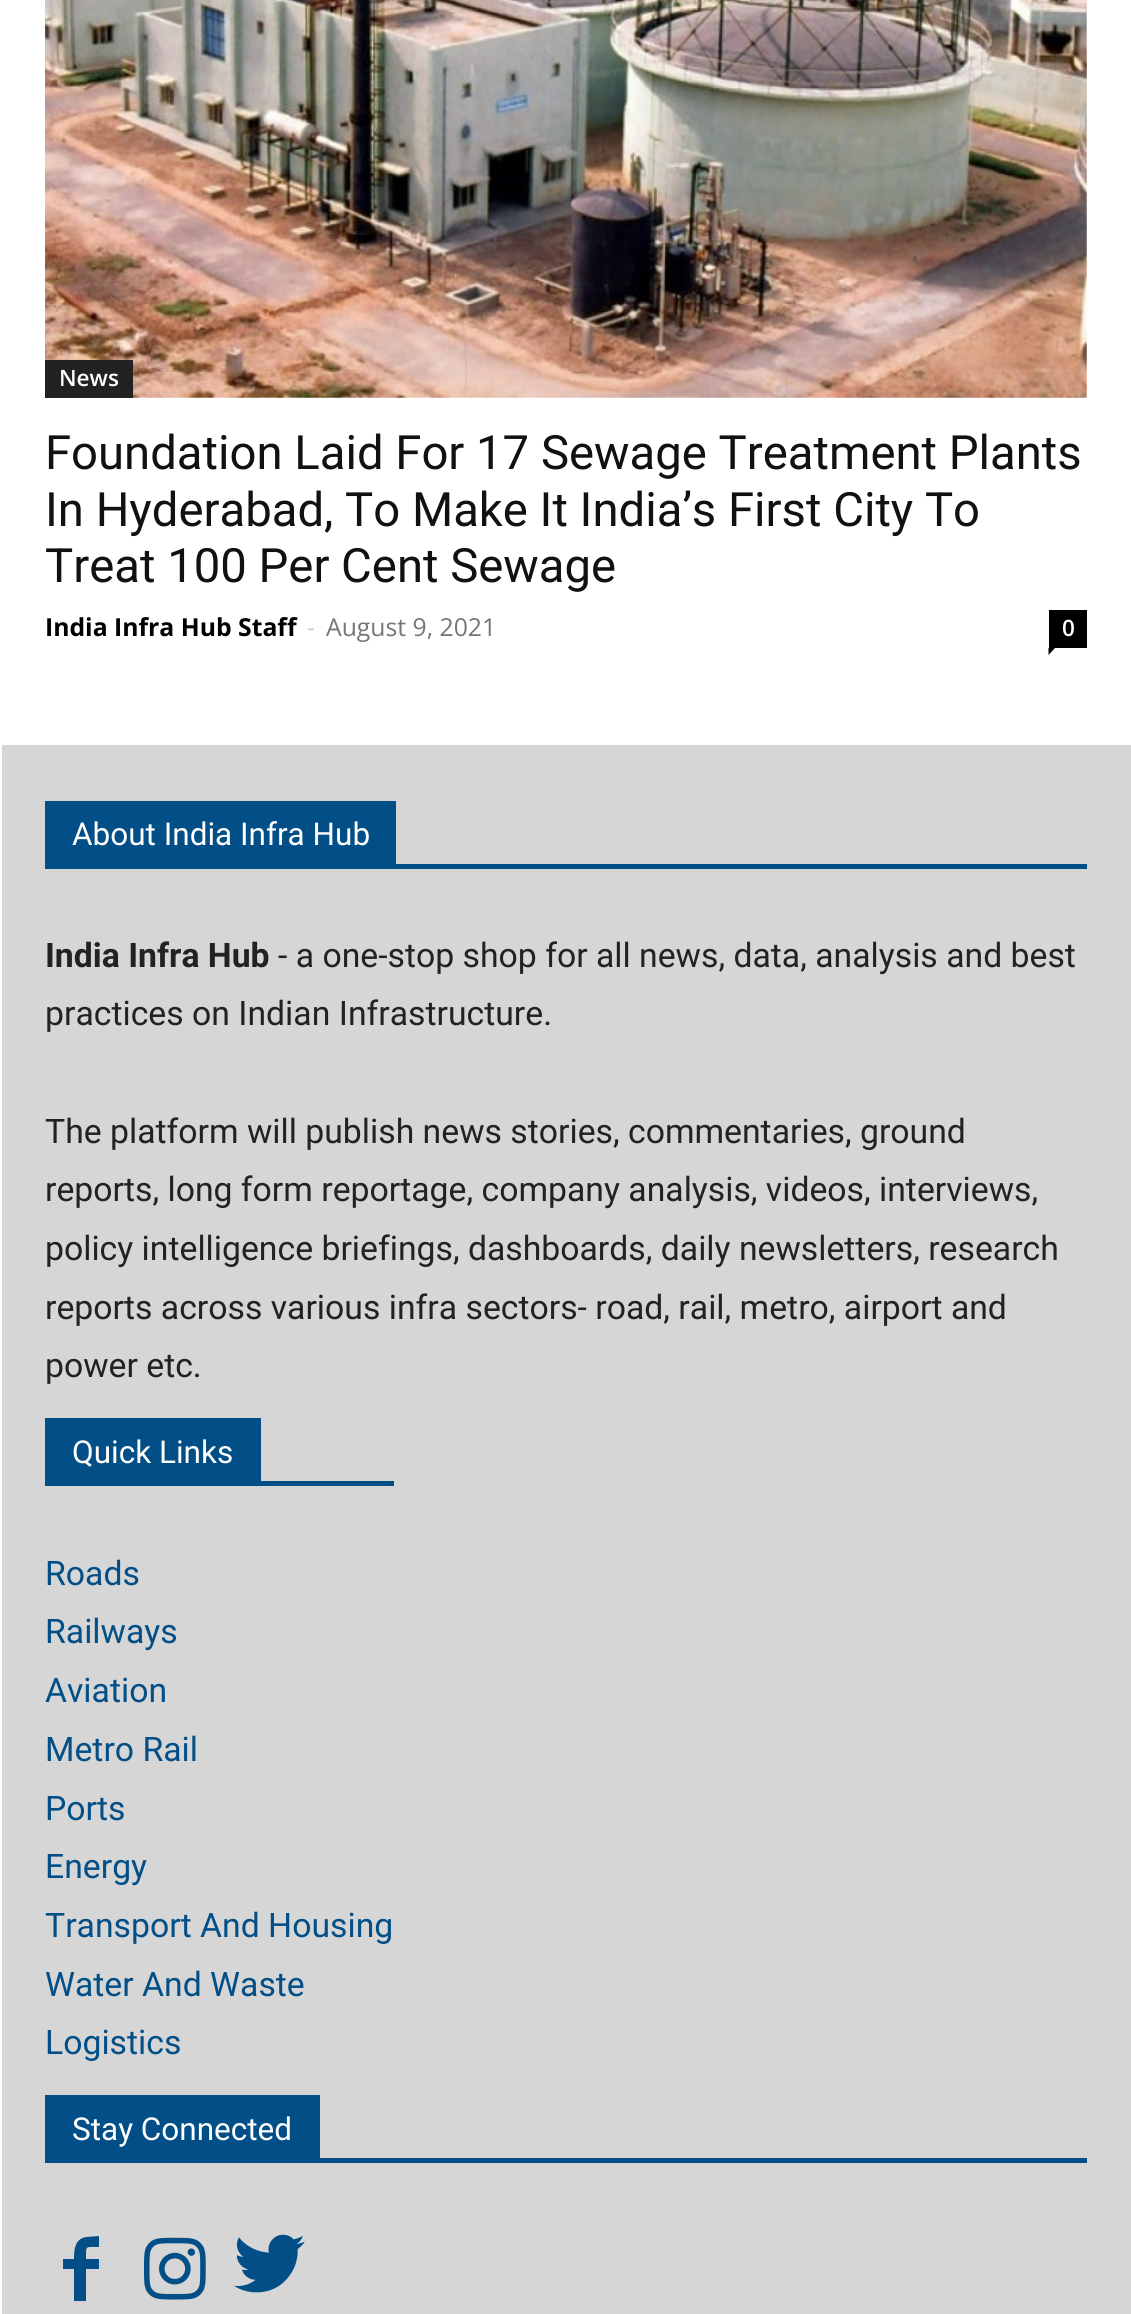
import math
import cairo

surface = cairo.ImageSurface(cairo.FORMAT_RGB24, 1131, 2314)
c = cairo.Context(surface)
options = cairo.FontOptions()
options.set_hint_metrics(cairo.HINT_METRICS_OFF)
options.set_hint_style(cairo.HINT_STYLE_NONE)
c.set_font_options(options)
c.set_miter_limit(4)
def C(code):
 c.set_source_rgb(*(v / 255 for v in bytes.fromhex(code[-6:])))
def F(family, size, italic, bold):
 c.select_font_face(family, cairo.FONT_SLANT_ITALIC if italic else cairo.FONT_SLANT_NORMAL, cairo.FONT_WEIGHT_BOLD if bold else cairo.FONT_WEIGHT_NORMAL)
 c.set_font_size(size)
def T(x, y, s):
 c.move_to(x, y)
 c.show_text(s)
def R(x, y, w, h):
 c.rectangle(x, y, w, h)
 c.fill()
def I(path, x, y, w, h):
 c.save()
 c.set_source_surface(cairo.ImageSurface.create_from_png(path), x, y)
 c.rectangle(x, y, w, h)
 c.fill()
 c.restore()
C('ffffff')
c.paint()
I('1.png',45,0,1042,398)
C('222222')
R(45,360,88,38)
F('Open Sans SemiBold',22.5,0,0)
C('ffffff')
T(59,386,'News')
F('Roboto',47.25,0,0)
C('111111')
T(45,469,'Foundation Laid For 17 Sewage Treatment Plants')
T(45,526,'In Hyderabad, To Make It India’s First City To')
T(45,582,'Treat 100 Per Cent Sewage')
F('Open Sans',24.75,0,1)
C('000000')
T(45,636,'India Infra Hub Staff')
F('Open Sans',24.75,0,0)
C('cccccc')
T(307,636,'-')
C('767676')
T(326,636,'August 9, 2021')
C('000000')
R(1049,610,38,38)
F('Open Sans SemiBold',22.5,0,0)
C('ffffff')
T(1062,636,'0')
C('000000')
c.new_path()
c.move_to(1048.5,648)
c.line_to(1055,648)
c.line_to(1048.5,655)
c.close_path()
c.fill()
C('d6d6d6')
R(2,745,1129,1569)
C('024e87')
R(45,864,1042,5)
R(45,801,351,63)
F('Roboto',31.5,0,0)
C('ffffff')
T(72,845,'About India Infra Hub')
F('Roboto',33.75,0,1)
C('222222')
T(45,967,'India Infra Hub')
F('Roboto',33.75,0,0)
T(278,967,'- a one-stop shop for all news, data, analysis and best')
T(45,1025,'practices on Indian Infrastructure.')
T(45,1143,'The platform will publish news stories, commentaries, ground')
T(45,1201,'reports, long form reportage, company analysis, videos, interviews,')
T(45,1260,'policy intelligence briefings, dashboards, daily newsletters, research')
T(45,1319,'reports across various infra sectors- road, rail, metro, airport and')
T(45,1377,'power etc.')
C('024e87')
R(45,1481,349,5)
R(45,1418,216,63)
F('Roboto',31.5,0,0)
C('ffffff')
T(72,1463,'Quick Links')
F('Roboto',33.75,0,0)
C('024e87')
T(45,1585,'Roads')
T(45,1643,'Railways')
T(45,1702,'Aviation')
T(45,1761,'Metro Rail')
T(45,1820,'Ports')
T(45,1878,'Energy')
T(45,1937,'Transport And Housing')
T(45,1996,'Water And Waste')
T(45,2054,'Logistics')
R(45,2158,1042,5)
R(45,2095,275,63)
F('Roboto',31.5,0,0)
C('ffffff')
T(72,2140,'Stay Connected')
C('024e87')
c.new_path()
c.move_to(99,2247)
c.curve_to(85,2247,86,2245,86,2259)
c.line_to(99,2259)
c.line_to(99,2269)
c.line_to(86,2269)
c.line_to(86,2301)
c.line_to(74,2301)
c.line_to(74,2269)
c.line_to(63,2269)
c.line_to(63,2259)
c.line_to(74,2259)
c.curve_to(74,2249,75,2239,86,2237)
c.line_to(99,2236)
c.close_path()
c.fill()
I('2.png',144,2237,62,63)
I('3.png',234,2234,71,59)
surface.write_to_png('o.png')
